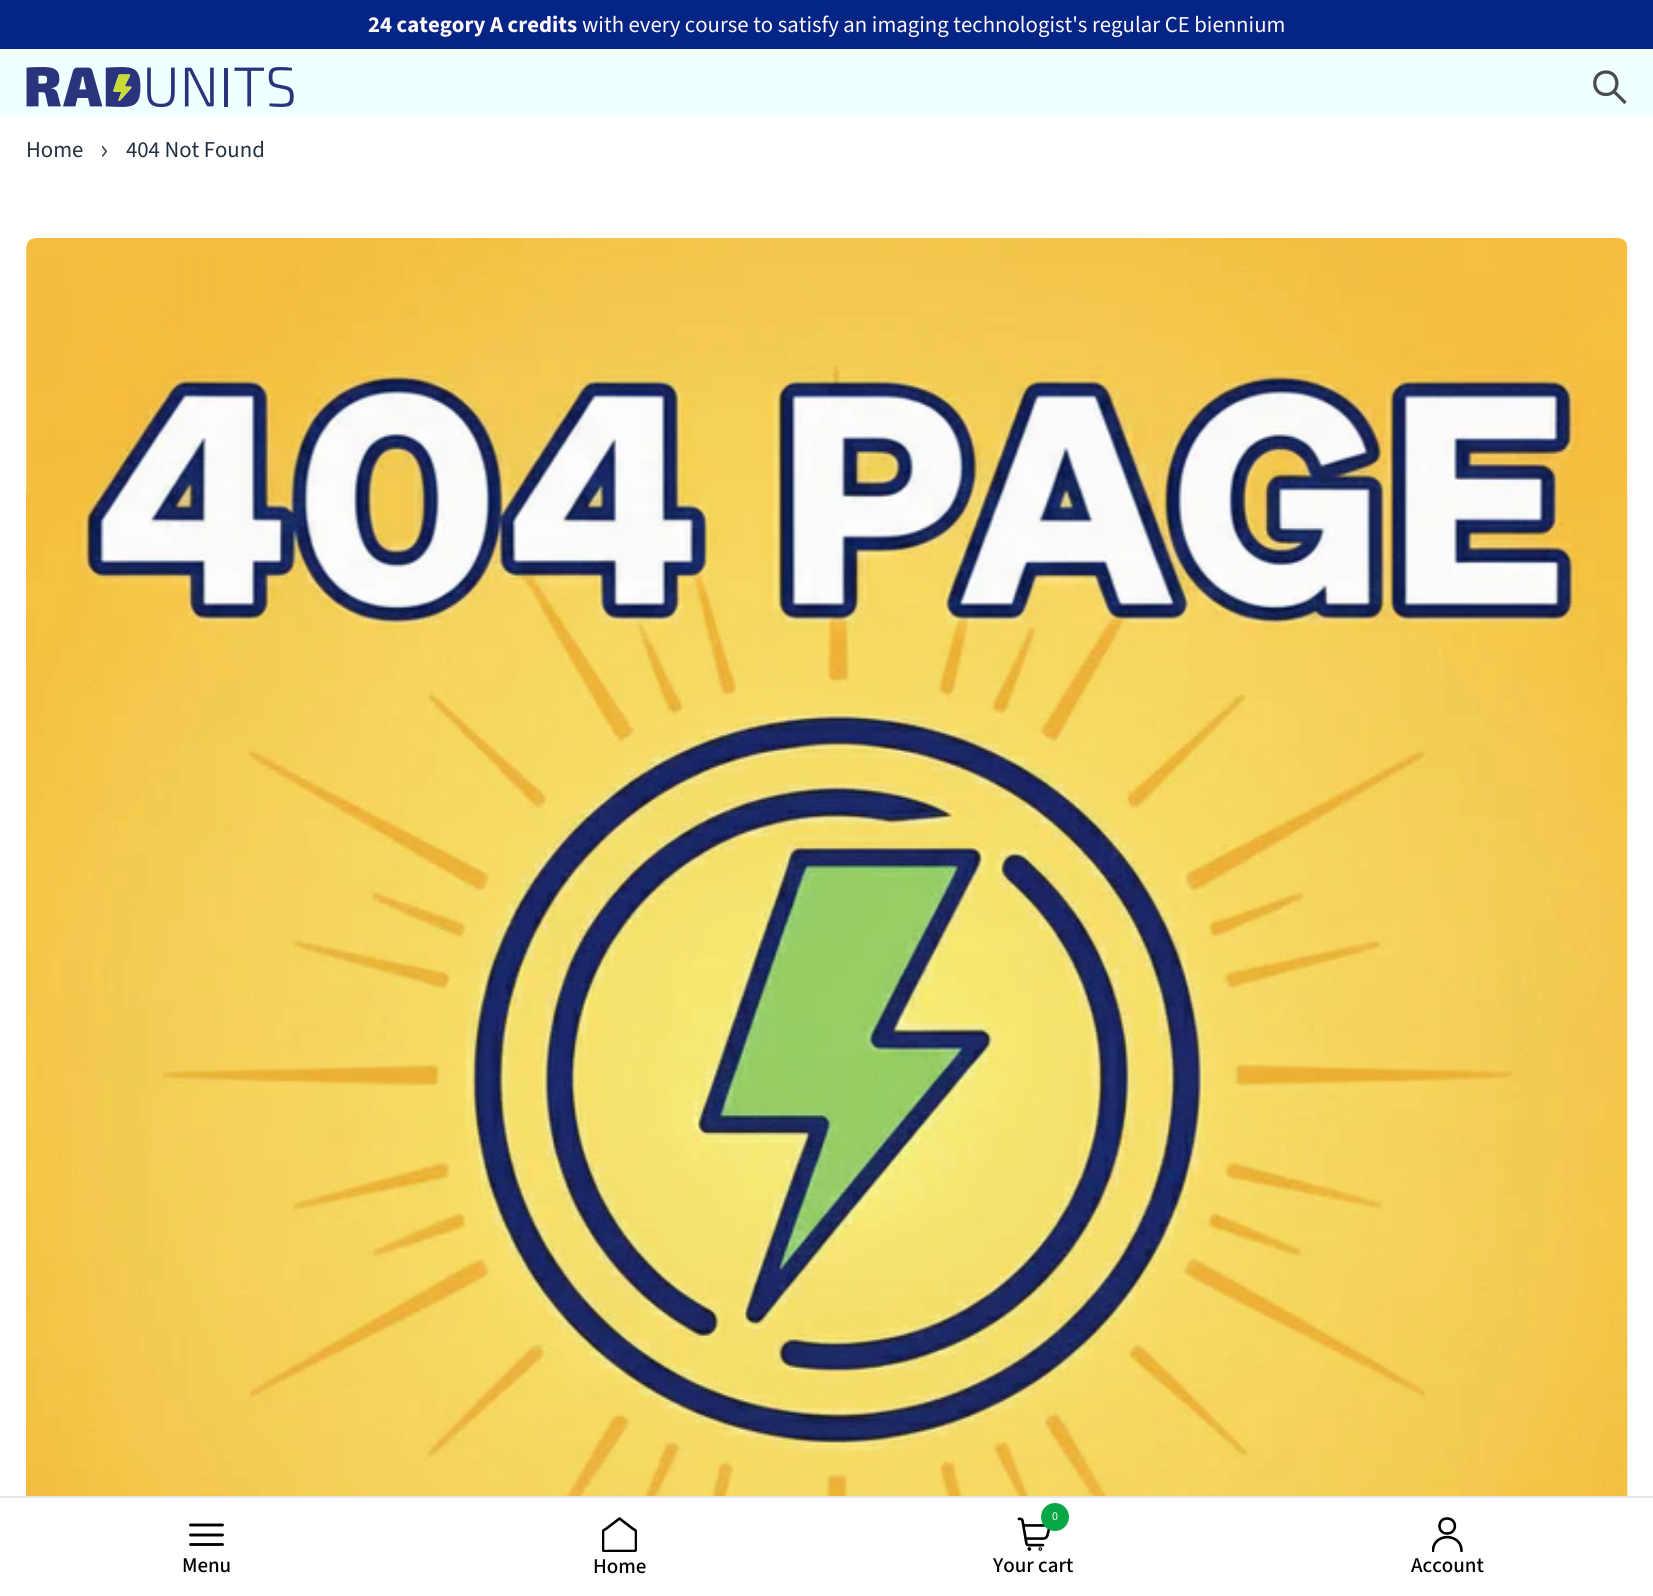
import math
import cairo

surface = cairo.ImageSurface(cairo.FORMAT_RGB24, 1653, 1596)
c = cairo.Context(surface)
options = cairo.FontOptions()
options.set_hint_metrics(cairo.HINT_METRICS_OFF)
options.set_hint_style(cairo.HINT_STYLE_NONE)
c.set_font_options(options)
c.set_miter_limit(4)
def C(code):
 c.set_source_rgb(*(v / 255 for v in bytes.fromhex(code[-6:])))
def F(family, size, italic, bold):
 c.select_font_face(family, cairo.FONT_SLANT_ITALIC if italic else cairo.FONT_SLANT_NORMAL, cairo.FONT_WEIGHT_BOLD if bold else cairo.FONT_WEIGHT_NORMAL)
 c.set_font_size(size)
def T(x, y, s):
 c.move_to(x, y)
 c.show_text(s)
def R(x, y, w, h):
 c.rectangle(x, y, w, h)
 c.fill()
def I(path, x, y, w, h):
 c.save()
 c.set_source_surface(cairo.ImageSurface.create_from_png(path), x, y)
 c.rectangle(x, y, w, h)
 c.fill()
 c.restore()
C('ffffff')
c.paint()
C('042486')
R(0,0,1653,49)
F('Source Sans 3',22.75,0,1)
C('fff7f7')
T(368,32,'24 category A credits')
F('Source Sans 3',22.75,0,0)
T(582,32,'with every course to satisfy an imaging technologist\'s regular CE biennium')
C('f0ffff')
R(0,49,1653,68)
I('1.png',26,67,268,41)
c.new_path()
c.move_to(1606,94.5)
c.curve_to(1620.5,94.5,1620.5,72,1606,72)
c.curve_to(1591,72,1591,94.5,1606,94.5)
c.close_path()
c.move_to(1625.5,103)
c.line_to(1613.5,91)
C('4d4d4d')
c.set_line_width(3.3)
c.stroke()
C('243142')
T(26,157,'Home')
I('2.png',102,145,6,12)
T(126,157,'404 Not Found')
I('3.png',26,238,1602,1258)
C('e6e6e6')
R(0,1496,1653,2)
c.new_path()
c.move_to(190.5,1544.5)
c.line_to(222.5,1544.5)
c.move_to(190.5,1535)
c.line_to(222.5,1535)
c.move_to(190.5,1525)
c.line_to(222.5,1525)
C('000000')
c.set_line_width(2.9)
c.set_line_cap(cairo.LINE_CAP_ROUND)
c.set_line_join(cairo.LINE_JOIN_ROUND)
c.stroke()
F('Source Sans 3 Medium',21,0,0)
T(182,1572,'Menu')
c.save()
c.rectangle(602,1516,35,36)
c.clip()
c.new_path()
c.move_to(634.5,1551)
c.curve_to(636.5,1551,636,1547.5,636,1546.5)
c.line_to(636,1534.5)
c.curve_to(636,1530,636.5,1531,632.5,1528.5)
c.line_to(619.5,1518.5)
c.line_to(606.5,1528.5)
c.curve_to(602.5,1531,603,1530,603,1534.5)
c.line_to(603,1546.5)
c.curve_to(603,1552.5,603,1551,609.5,1551)
c.close_path()
c.set_line_width(2.6)
c.stroke()
c.restore()
T(593,1573,'Home')
I('4.png',1017,1517,33,34)
C('05a845')
c.arc(1055,1517,14,0,2 * math.pi)
c.fill()
F('Source Sans 3',12,0,0)
C('ffffff')
T(1052,1520,'0')
F('Source Sans 3 Medium',21,0,0)
C('000000')
T(993,1572,'Your cart')
c.new_path()
c.move_to(1447,1533.5)
c.curve_to(1457.5,1533.5,1457.5,1518.5,1447,1518.5)
c.curve_to(1437,1518.5,1437,1533.5,1447,1533.5)
c.close_path()
c.set_line_width(2.6)
c.stroke()
c.save()
c.rectangle(1432,1517,31,35)
c.clip()
c.new_path()
c.move_to(1433,1551)
c.curve_to(1433,1532.5,1461.5,1532.5,1461.5,1551)
c.stroke()
c.restore()
T(1411,1572,'Account')
surface.write_to_png('o.png')
